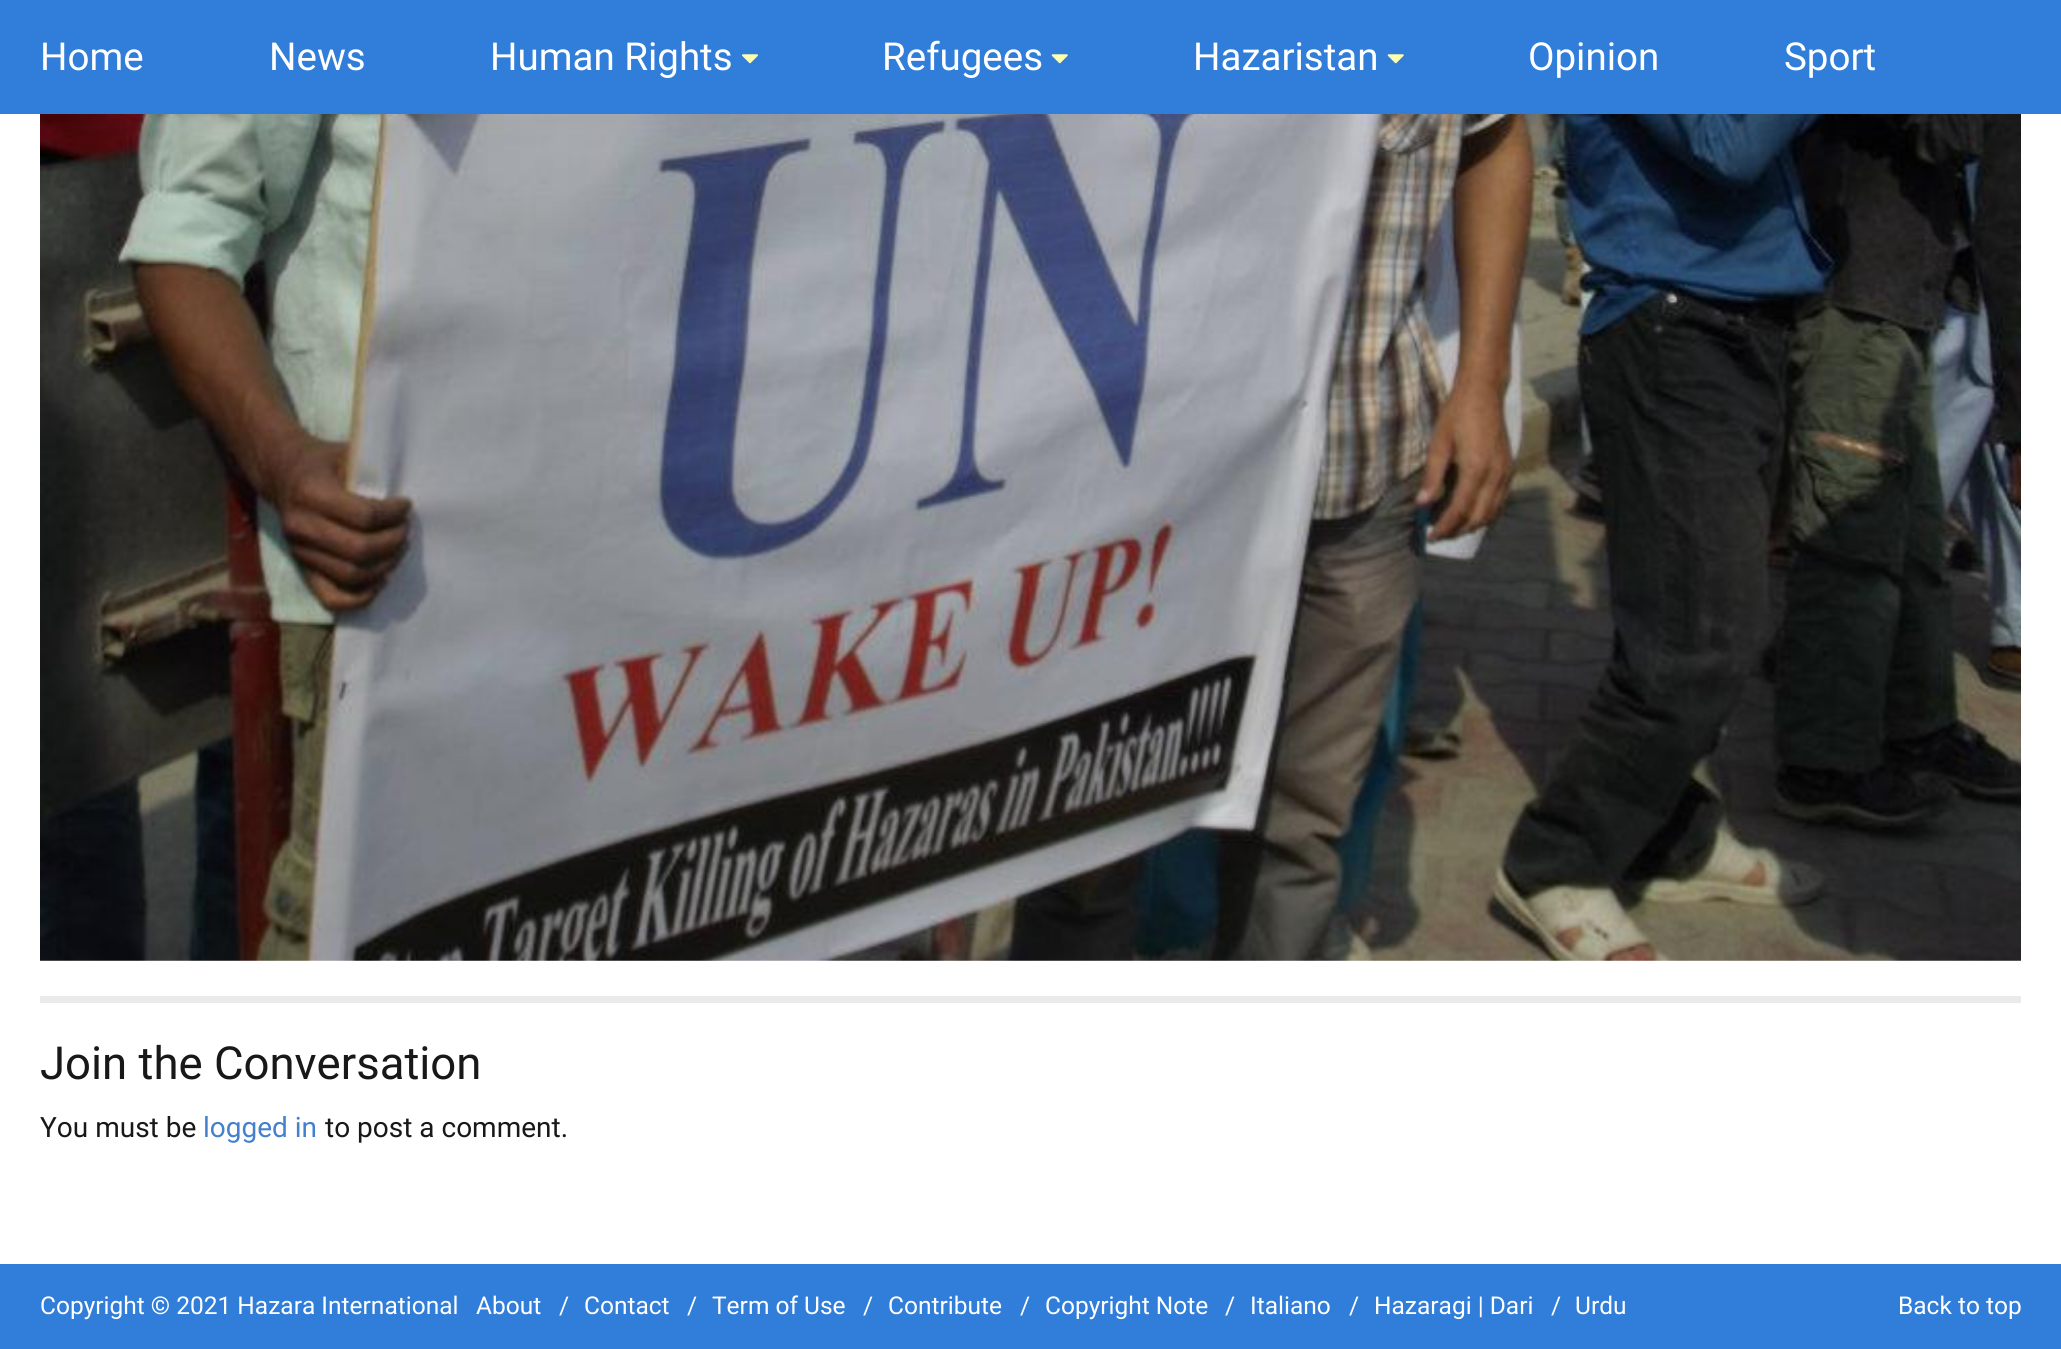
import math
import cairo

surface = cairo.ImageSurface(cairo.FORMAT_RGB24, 2061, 1349)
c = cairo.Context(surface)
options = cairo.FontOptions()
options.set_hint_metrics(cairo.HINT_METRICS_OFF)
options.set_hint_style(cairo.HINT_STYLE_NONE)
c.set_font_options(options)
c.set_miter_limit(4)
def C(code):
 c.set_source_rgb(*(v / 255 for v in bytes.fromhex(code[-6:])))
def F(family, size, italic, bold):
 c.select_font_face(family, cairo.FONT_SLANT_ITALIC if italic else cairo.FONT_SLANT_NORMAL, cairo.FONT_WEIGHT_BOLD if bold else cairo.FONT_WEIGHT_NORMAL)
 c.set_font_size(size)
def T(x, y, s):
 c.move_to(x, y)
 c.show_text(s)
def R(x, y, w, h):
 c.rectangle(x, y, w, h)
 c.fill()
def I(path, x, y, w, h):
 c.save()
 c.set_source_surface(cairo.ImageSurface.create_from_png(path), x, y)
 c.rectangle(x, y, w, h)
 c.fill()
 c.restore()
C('ffffff')
c.paint()
C('307ed9')
R(0,0,2061,114)
F('Roboto',38.5,0,0)
C('ffffff')
T(40,70,'Home')
T(269,70,'News')
T(490,70,'Human Rights')
I('1.png',742,54,16,10)
T(882,70,'Refugees')
I('2.png',1051,54,17,10)
T(1193,70,'Hazaristan')
I('2.png',1387,54,17,10)
T(1528,70,'Opinion')
T(1784,70,'Sport')
I('3.png',40,114,1981,847)
C('eaeaea')
R(40,996,1981,7)
F('Roboto',45.5,0,0)
C('181818')
T(40,1079,'Join the Conversation')
F('Roboto',28,0,0)
T(40,1137,'You must be')
C('4480cd')
T(203,1137,'logged in')
C('181818')
T(325,1137,'to post a comment.')
C('307ed9')
R(0,1264,2061,85)
F('Roboto',24.5,0,0)
C('ffffff')
T(40,1314,'Copyright © 2021 Hazara International')
T(476,1314,'About')
T(559,1314,'/')
T(584,1314,'Contact')
T(687,1314,'/')
T(712,1314,'Term of Use')
T(863,1314,'/')
T(888,1314,'Contribute')
T(1020,1314,'/')
T(1045,1314,'Copyright Note')
T(1225,1314,'/')
T(1250,1314,'Italiano')
T(1349,1314,'/')
T(1374,1314,'Hazaragi | Dari')
T(1551,1314,'/')
T(1575,1314,'Urdu')
T(1898,1314,'Back to top')
surface.write_to_png('o.png')
